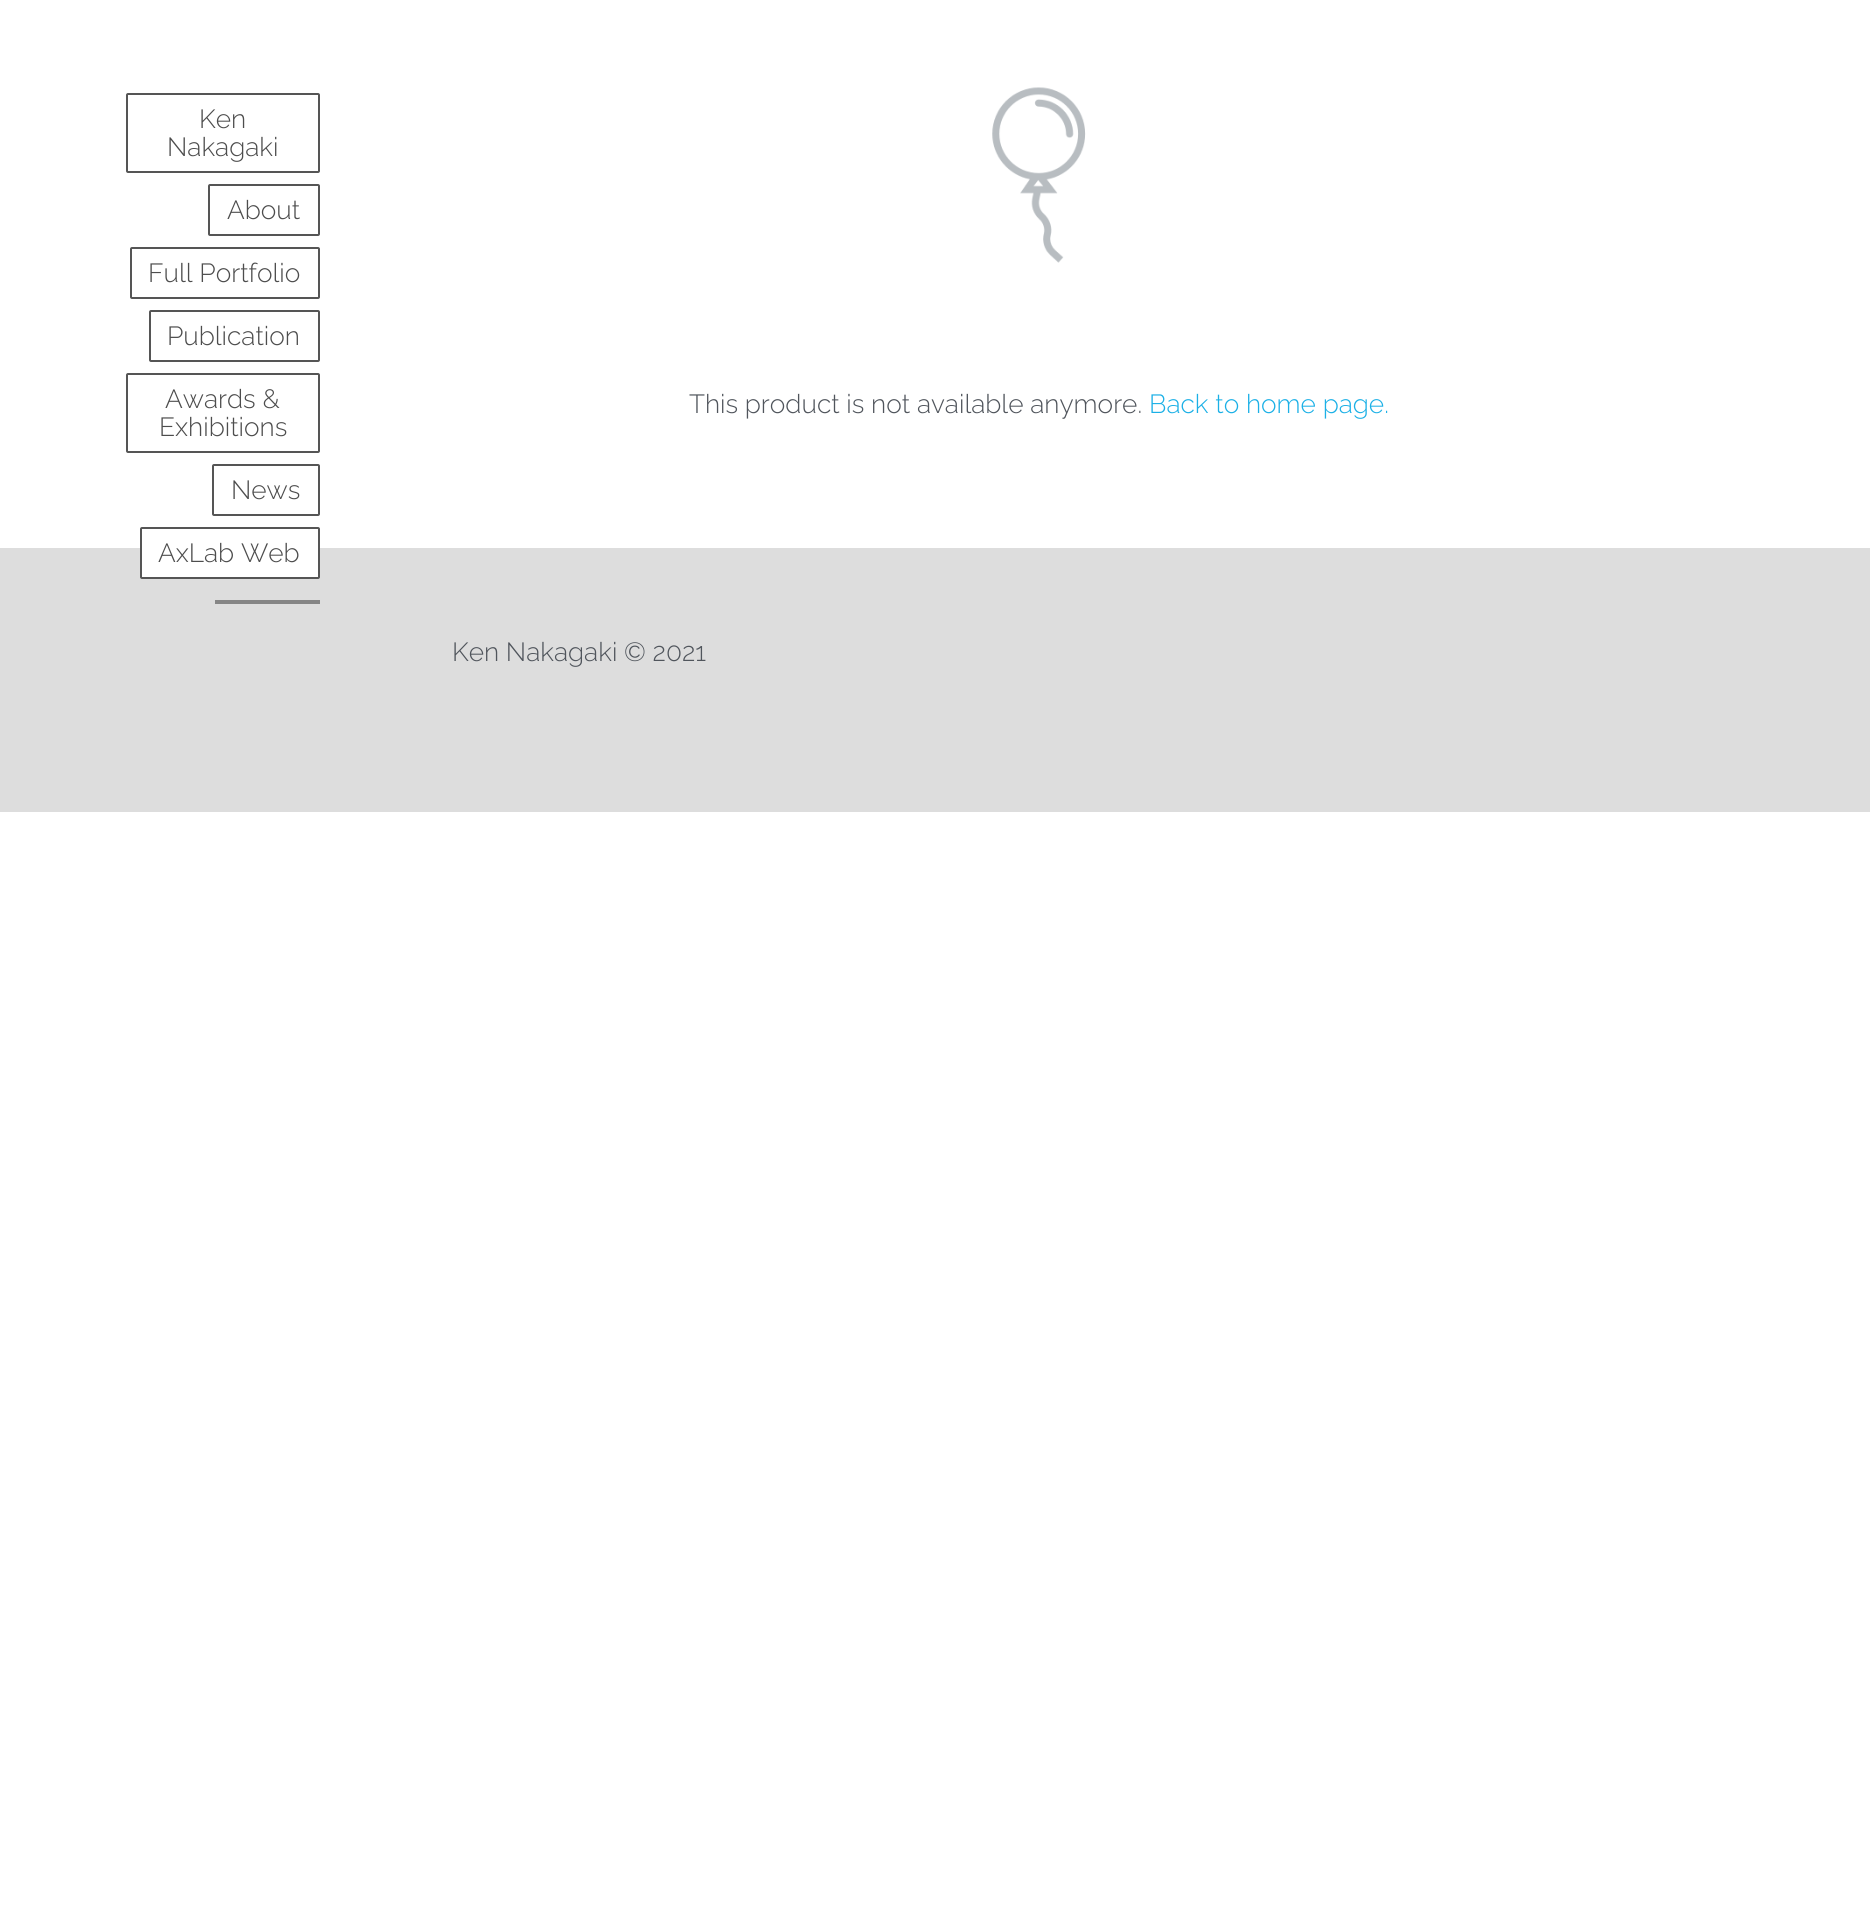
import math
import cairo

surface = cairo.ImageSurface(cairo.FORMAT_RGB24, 1870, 1909)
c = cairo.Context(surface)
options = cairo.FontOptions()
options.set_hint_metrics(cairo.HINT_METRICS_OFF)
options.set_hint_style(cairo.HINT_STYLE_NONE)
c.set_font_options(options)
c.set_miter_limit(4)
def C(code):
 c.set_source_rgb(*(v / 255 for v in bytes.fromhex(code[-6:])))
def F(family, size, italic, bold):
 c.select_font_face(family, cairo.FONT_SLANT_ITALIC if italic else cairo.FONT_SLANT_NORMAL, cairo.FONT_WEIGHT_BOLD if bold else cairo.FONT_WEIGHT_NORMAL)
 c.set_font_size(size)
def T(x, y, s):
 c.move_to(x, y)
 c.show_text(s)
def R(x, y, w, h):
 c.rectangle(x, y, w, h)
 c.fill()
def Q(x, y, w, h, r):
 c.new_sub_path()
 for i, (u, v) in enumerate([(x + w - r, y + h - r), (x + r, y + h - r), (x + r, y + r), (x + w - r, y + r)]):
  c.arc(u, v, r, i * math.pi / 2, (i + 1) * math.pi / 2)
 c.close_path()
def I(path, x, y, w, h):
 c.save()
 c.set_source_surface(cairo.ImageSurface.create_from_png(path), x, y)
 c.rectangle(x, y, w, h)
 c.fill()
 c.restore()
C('ffffff')
c.paint()
Q(127,94,192,78,1)
C('555555')
c.stroke()
F('Raleway Light',26.25,0,0)
C('4d4d4d')
T(199,128,'Ken')
T(167,156,'Nakagaki')
Q(209,185,110,50,1)
C('555555')
c.stroke()
C('4d4d4d')
T(227,219,'About')
Q(131,248,188,50,1)
C('555555')
c.stroke()
C('4d4d4d')
T(148,282,'Full Portfolio')
Q(150,311,169,50,1)
C('555555')
c.stroke()
C('4d4d4d')
T(167,345,'Publication')
Q(127,374,192,78,1)
C('555555')
c.stroke()
C('4d4d4d')
T(165,408,'Awards &')
T(159,436,'Exhibitions')
Q(213,465,106,50,1)
C('555555')
c.stroke()
C('4d4d4d')
T(231,499,'News')
C('dddddd')
R(0,548,1870,264)
C('ffffff')
Q(141,528,178,50,1)
c.fill_preserve()
C('555555')
c.stroke()
C('4d4d4d')
T(158,562,'AxLab Web')
C('858585')
R(215,600,105,4)
I('1.png',992,87,94,176)
C('50555c')
T(689,413,'This product is not available anymore.')
C('1bb0e6')
T(1149,413,'Back to home page.')
C('50555c')
T(452,661,'Ken Nakagaki © 2021')
surface.write_to_png('o.png')
